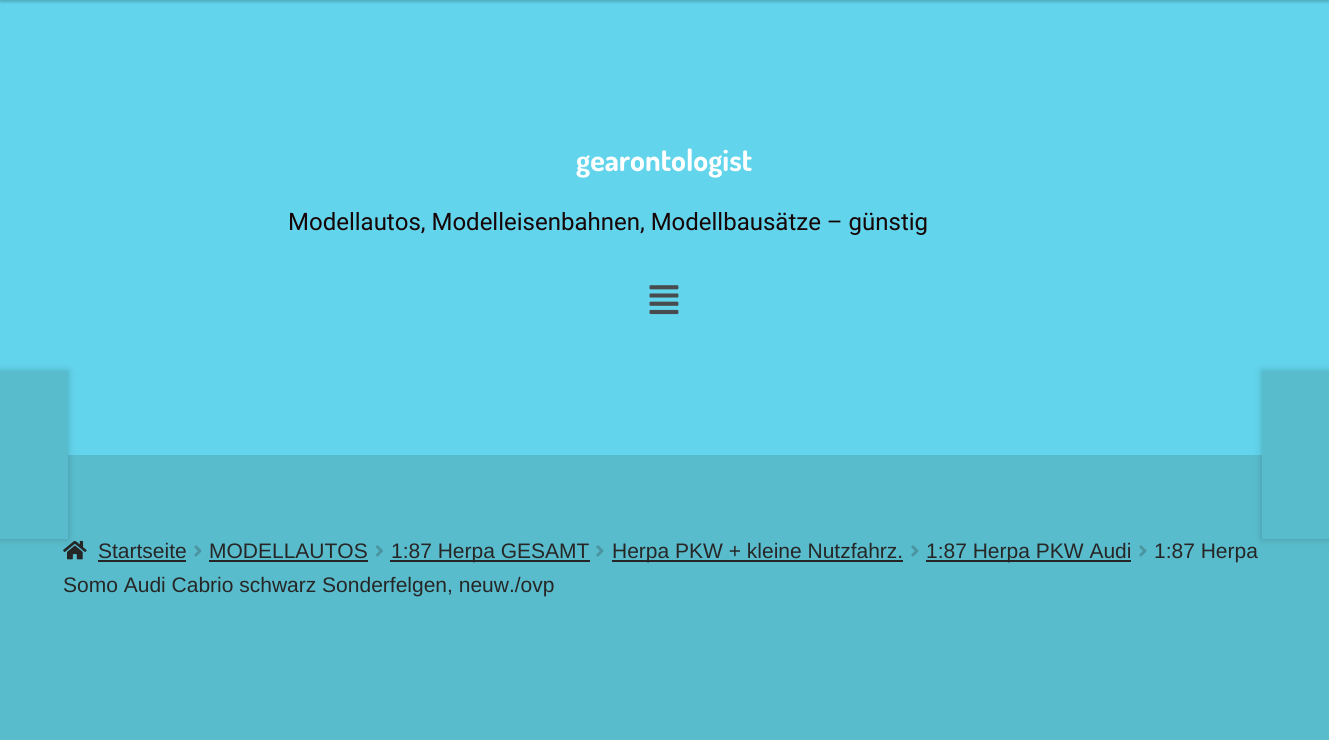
import math
import cairo

surface = cairo.ImageSurface(cairo.FORMAT_RGB24, 1329, 740)
c = cairo.Context(surface)
options = cairo.FontOptions()
options.set_hint_metrics(cairo.HINT_METRICS_OFF)
options.set_hint_style(cairo.HINT_STYLE_NONE)
c.set_font_options(options)
c.set_miter_limit(4)
def C(code):
 c.set_source_rgb(*(v / 255 for v in bytes.fromhex(code[-6:])))
def F(family, size, italic, bold):
 c.select_font_face(family, cairo.FONT_SLANT_ITALIC if italic else cairo.FONT_SLANT_NORMAL, cairo.FONT_WEIGHT_BOLD if bold else cairo.FONT_WEIGHT_NORMAL)
 c.set_font_size(size)
def T(x, y, s):
 c.move_to(x, y)
 c.show_text(s)
def R(x, y, w, h):
 c.rectangle(x, y, w, h)
 c.fill()
def Q(x, y, w, h, r):
 c.new_sub_path()
 for i, (u, v) in enumerate([(x + w - r, y + h - r), (x + r, y + h - r), (x + r, y + r), (x + w - r, y + r)]):
  c.arc(u, v, r, i * math.pi / 2, (i + 1) * math.pi / 2)
 c.close_path()
def S(x, y, w, h, r, blur, alpha):
 c.push_group_with_content(cairo.CONTENT_ALPHA)
 c.set_operator(cairo.OPERATOR_SOURCE)
 for i in range(15, -16, -2):
  e = blur * i / 6
  if min(w, h) + 2 * e > 0:
   c.set_source_rgba(0, 0, 0, alpha * math.erfc((i - 1) / 8.5) / 2)
   Q(x - e, y - e, w + 2 * e, h + 2 * e, max(0, min(r + e + blur * .6, min(w, h) / 2 + e)))
   c.fill()
 c.mask(c.pop_group())
def I(path, x, y, w, h):
 c.save()
 c.set_source_surface(cairo.ImageSurface.create_from_png(path), x, y)
 c.rectangle(x, y, w, h)
 c.fill()
 c.restore()
C('59bccc')
c.paint()
C('62d4eb')
R(0,0,1329,455)
F('Dosis',30,0,1)
C('ffffff')
T(576,171,'gearontologist')
C('000000')
S(0,-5,1329,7,0,1.5,.2)
F('Roboto',24,0,0)
C('160506')
T(288,230,'Modellautos, Modelleisenbahnen, Modellbausätze – günstig')
I('1.png',649,285,30,30)
I('2.png',63,540,24,20)
C('000000')
S(-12,371,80,168,0,4,.2)
C('59bccc')
R(0,371,68,168)
C('000000')
S(1262,371,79,168,0,4,.2)
C('59bccc')
R(1262,371,67,168)
F('Liberation Sans',21,0,0)
C('262626')
T(98,558,'Startseite')
R(98,560,88,2)
I('3.png',194,545,8,12)
T(209,558,'MODELLAUTOS')
R(209,560,159,2)
I('4.png',375,545,8,12)
R(390,560,200,2)
T(391,558,'1:87 Herpa GESAMT')
I('3.png',596,545,8,12)
R(612,560,291,2)
T(612,558,'Herpa PKW + kleine Nutzfahrz.')
I('3.png',911,545,8,12)
R(926,560,205,2)
T(926,558,'1:87 Herpa PKW Audi')
I('3.png',1139,545,8,12)
T(1154,558,'1:87 Herpa')
T(63,592,'Somo Audi Cabrio schwarz Sonderfelgen, neuw./ovp')
surface.write_to_png('o.png')
